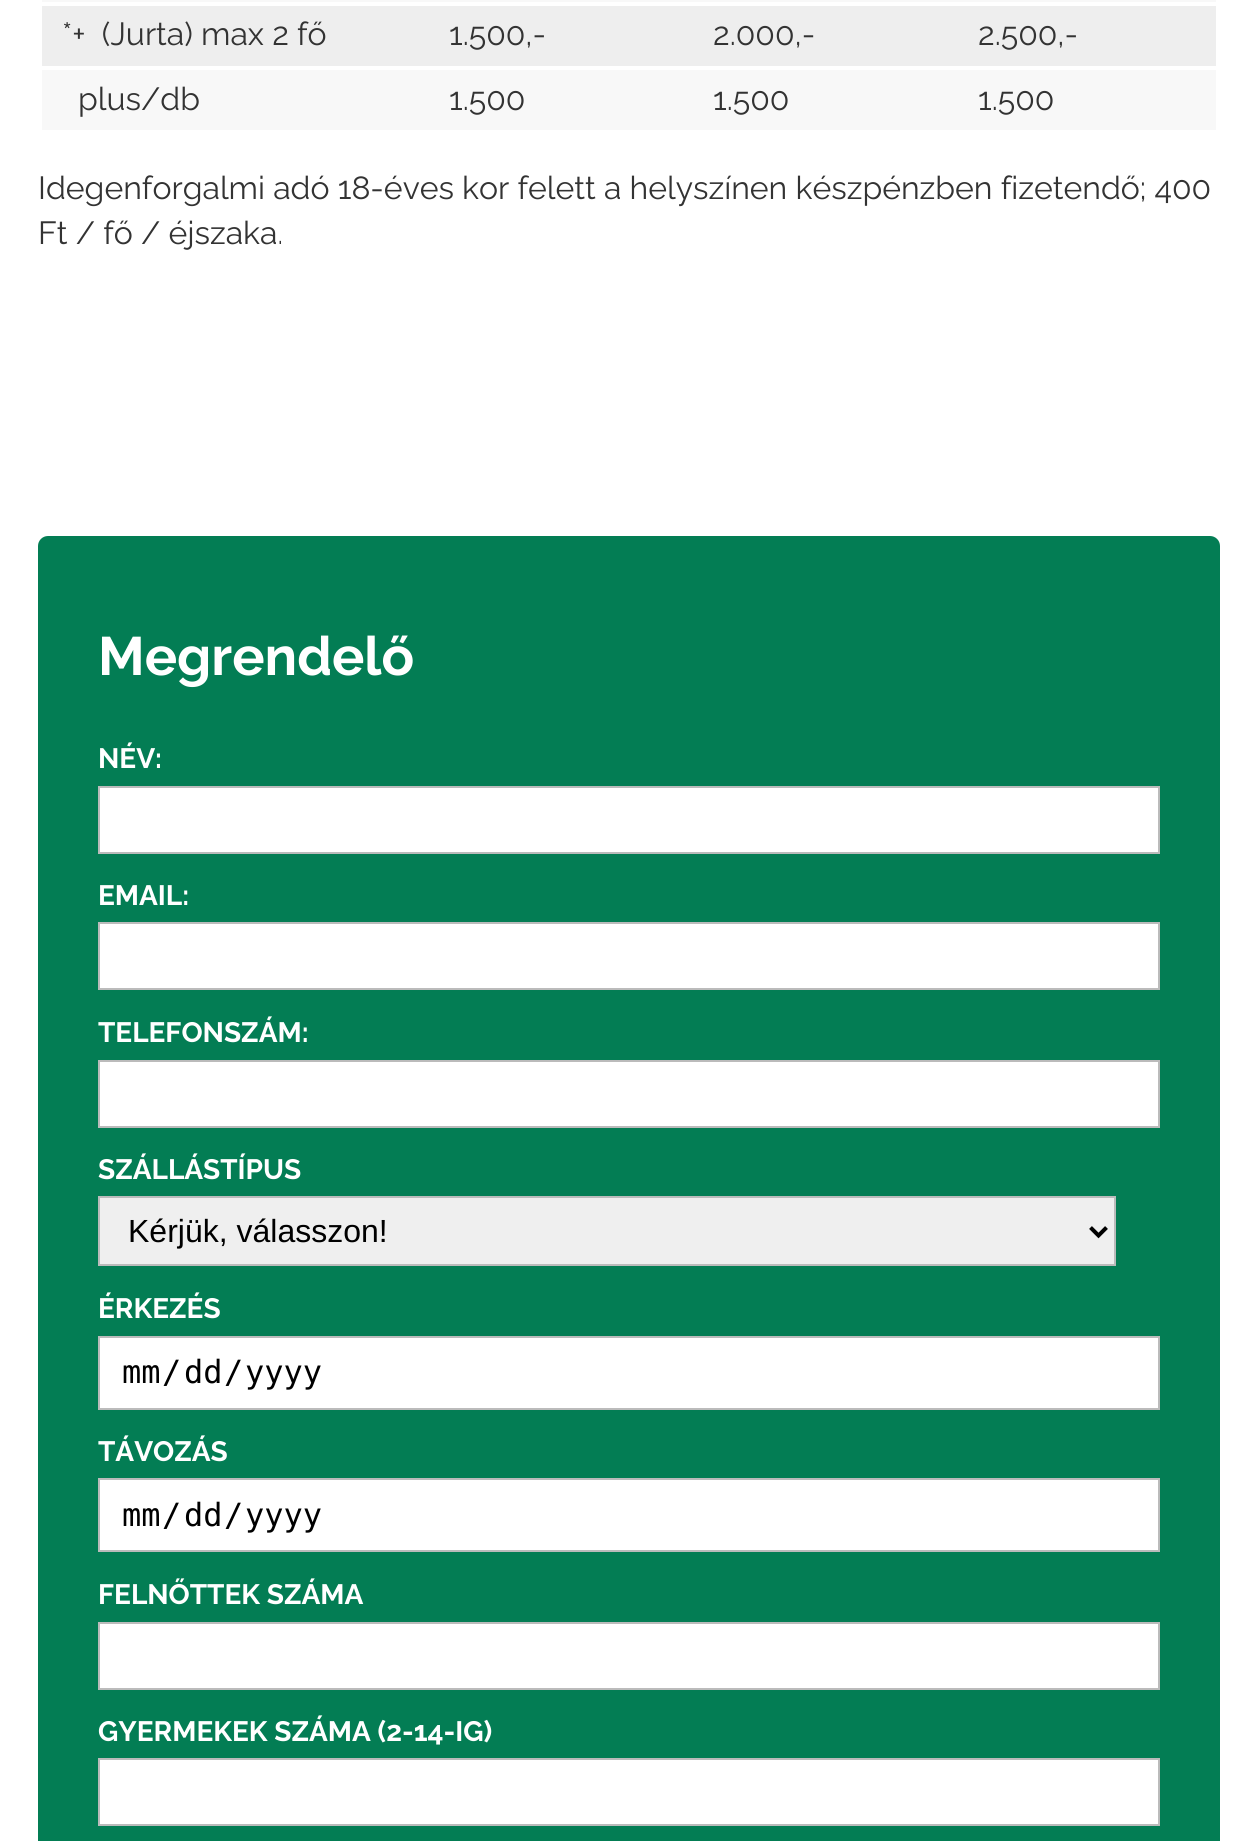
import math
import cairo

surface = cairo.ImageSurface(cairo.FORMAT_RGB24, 1257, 1841)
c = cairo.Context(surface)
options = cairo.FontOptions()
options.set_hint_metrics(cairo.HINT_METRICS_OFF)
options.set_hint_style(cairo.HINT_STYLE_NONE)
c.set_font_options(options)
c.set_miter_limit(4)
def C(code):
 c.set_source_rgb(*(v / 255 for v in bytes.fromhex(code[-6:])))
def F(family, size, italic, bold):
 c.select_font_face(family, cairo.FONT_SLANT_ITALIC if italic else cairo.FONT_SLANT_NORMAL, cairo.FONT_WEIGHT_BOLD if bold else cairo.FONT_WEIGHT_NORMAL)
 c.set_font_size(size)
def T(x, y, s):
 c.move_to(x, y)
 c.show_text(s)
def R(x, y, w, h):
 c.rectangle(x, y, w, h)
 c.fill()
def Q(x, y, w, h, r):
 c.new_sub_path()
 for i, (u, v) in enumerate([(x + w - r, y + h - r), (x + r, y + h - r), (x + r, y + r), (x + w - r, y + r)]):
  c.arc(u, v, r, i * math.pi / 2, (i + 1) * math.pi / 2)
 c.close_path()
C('ffffff')
c.paint()
C('f8f8f8')
R(42,0,1174,2)
C('eeeeee')
R(42,6,1174,60)
F('Raleway',32,0,0)
C('333333')
T(62,45,'*+  (Jurta) max 2 fő')
T(449,45,'1.500,-')
T(713,45,'2.000,-')
T(978,45,'2.500,-')
C('f8f8f8')
R(42,70,1174,60)
C('333333')
T(78,110,'plus/db')
T(449,110,'1.500')
T(713,110,'1.500')
T(978,110,'1.500')
T(38,199,'Idegenforgalmi adó 18-éves kor felett a helyszínen készpénzben fizetendő; 400')
T(38,244,'Ft / fő / éjszaka.')
C('037d54')
Q(38,536,1182,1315,10)
c.fill()
F('Raleway',54,0,1)
C('ffffff')
T(98,675,'Megrendelő')
F('Raleway',28,0,1)
T(98,768,'NÉV:')
c.rectangle(99,787,1060,66)
c.fill_preserve()
C('bbbbbb')
c.stroke()
C('ffffff')
T(98,905,'EMAIL:')
c.rectangle(99,923,1060,66)
c.fill_preserve()
C('bbbbbb')
c.stroke()
C('ffffff')
T(98,1042,'TELEFONSZÁM:')
c.rectangle(99,1061,1060,66)
c.fill_preserve()
C('bbbbbb')
c.stroke()
C('ffffff')
T(98,1179,'SZÁLLÁSTÍPUS')
C('efefef')
c.rectangle(99,1197,1016,68)
c.fill_preserve()
C('bbbbbb')
c.stroke()
c.new_path()
c.move_to(1090.5,1227.5)
c.line_to(1098.5,1235.5)
c.line_to(1106.5,1227.5)
C('000000')
c.set_line_width(4)
c.stroke()
F('Liberation Sans',32,0,0)
T(128,1242,'Kérjük, válasszon!')
F('Raleway',28,0,1)
C('ffffff')
T(98,1318,'ÉRKEZÉS')
c.rectangle(99,1337,1060,72)
c.fill_preserve()
C('bbbbbb')
c.set_line_width(2)
c.stroke()
F('DejaVu Sans Mono',32,0,0)
C('000000')
T(122,1383,'mm')
T(162,1383,'/')
T(184,1383,'dd')
T(224,1383,'/')
T(245,1383,'yyyy')
F('Raleway',28,0,1)
C('ffffff')
T(98,1461,'TÁVOZÁS')
c.rectangle(99,1479,1060,72)
c.fill_preserve()
C('bbbbbb')
c.stroke()
F('DejaVu Sans Mono',32,0,0)
C('000000')
T(122,1526,'mm')
T(162,1526,'/')
T(184,1526,'dd')
T(224,1526,'/')
T(245,1526,'yyyy')
F('Raleway',28,0,1)
C('ffffff')
T(98,1604,'FELNŐTTEK SZÁMA')
c.rectangle(99,1623,1060,66)
c.fill_preserve()
C('bbbbbb')
c.stroke()
C('ffffff')
T(98,1741,'GYERMEKEK SZÁMA (2-14-IG)')
c.rectangle(99,1759,1060,66)
c.fill_preserve()
C('bbbbbb')
c.stroke()
surface.write_to_png('o.png')
